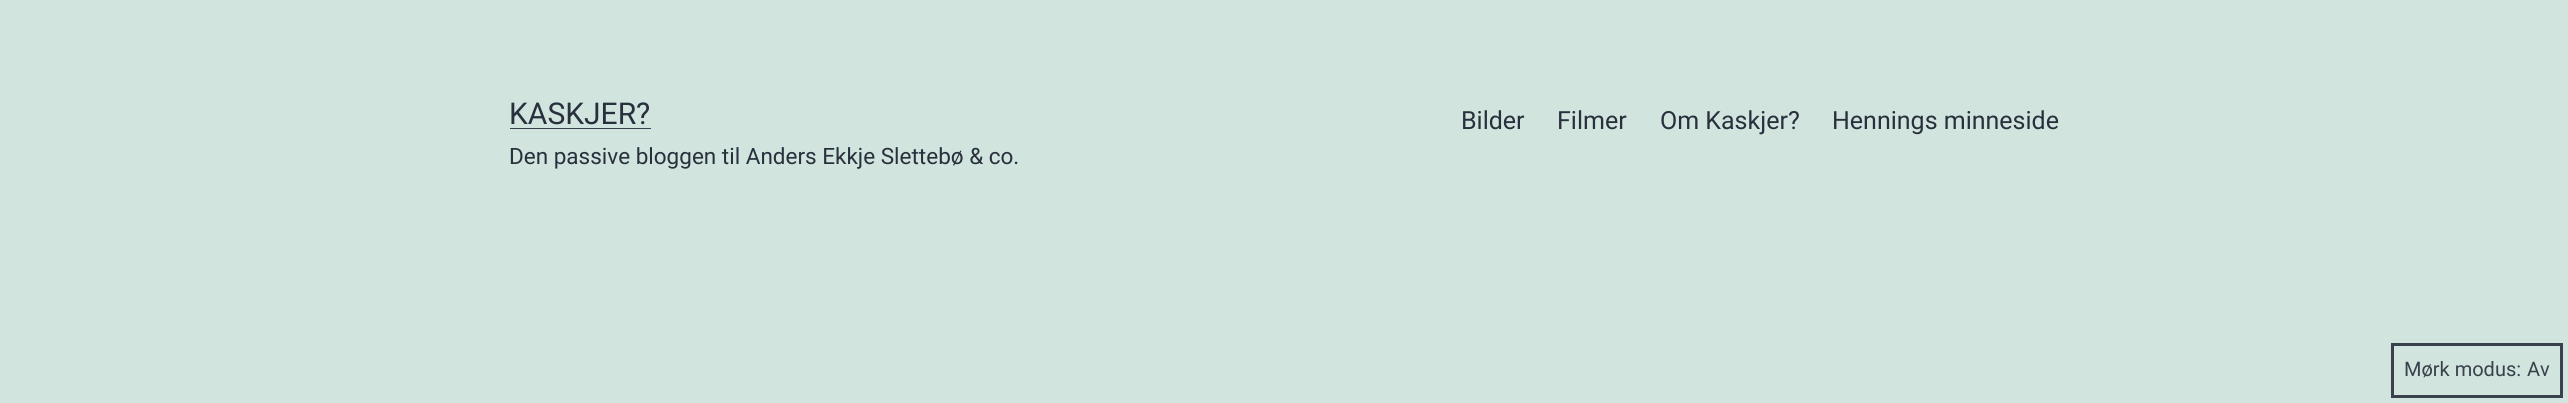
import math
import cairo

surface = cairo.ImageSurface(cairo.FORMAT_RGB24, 2568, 403)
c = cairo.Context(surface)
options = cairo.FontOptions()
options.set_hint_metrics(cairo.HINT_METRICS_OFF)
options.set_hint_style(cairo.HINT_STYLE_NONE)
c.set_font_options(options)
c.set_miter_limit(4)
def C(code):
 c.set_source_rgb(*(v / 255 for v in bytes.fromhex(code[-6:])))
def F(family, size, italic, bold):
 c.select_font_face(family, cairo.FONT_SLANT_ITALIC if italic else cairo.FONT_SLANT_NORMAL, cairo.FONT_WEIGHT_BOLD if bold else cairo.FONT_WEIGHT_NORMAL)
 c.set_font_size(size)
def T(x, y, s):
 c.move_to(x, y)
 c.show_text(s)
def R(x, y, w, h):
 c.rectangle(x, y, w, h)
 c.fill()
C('d1e4dd')
c.paint()
F('Roboto',30,0,0)
C('28303d')
T(509,124,'KASKJER?')
C('39414d')
R(510,128,141,1)
F('Roboto',22.5,0,0)
C('28303d')
T(509,164,'Den passive bloggen til Anders Ekkje Slettebø & co.')
F('Roboto',25,0,0)
T(1461,129,'Bilder')
T(1557,129,'Filmer')
T(1660,129,'Om Kaskjer?')
T(1832,129,'Hennings minneside')
c.rectangle(2392.5,344.5,169,52)
C('39414d')
c.set_line_width(3)
c.stroke()
F('Roboto',20,0,0)
T(2404,376,'Mørk modus:')
T(2527,376,'Av')
surface.write_to_png('o.png')
